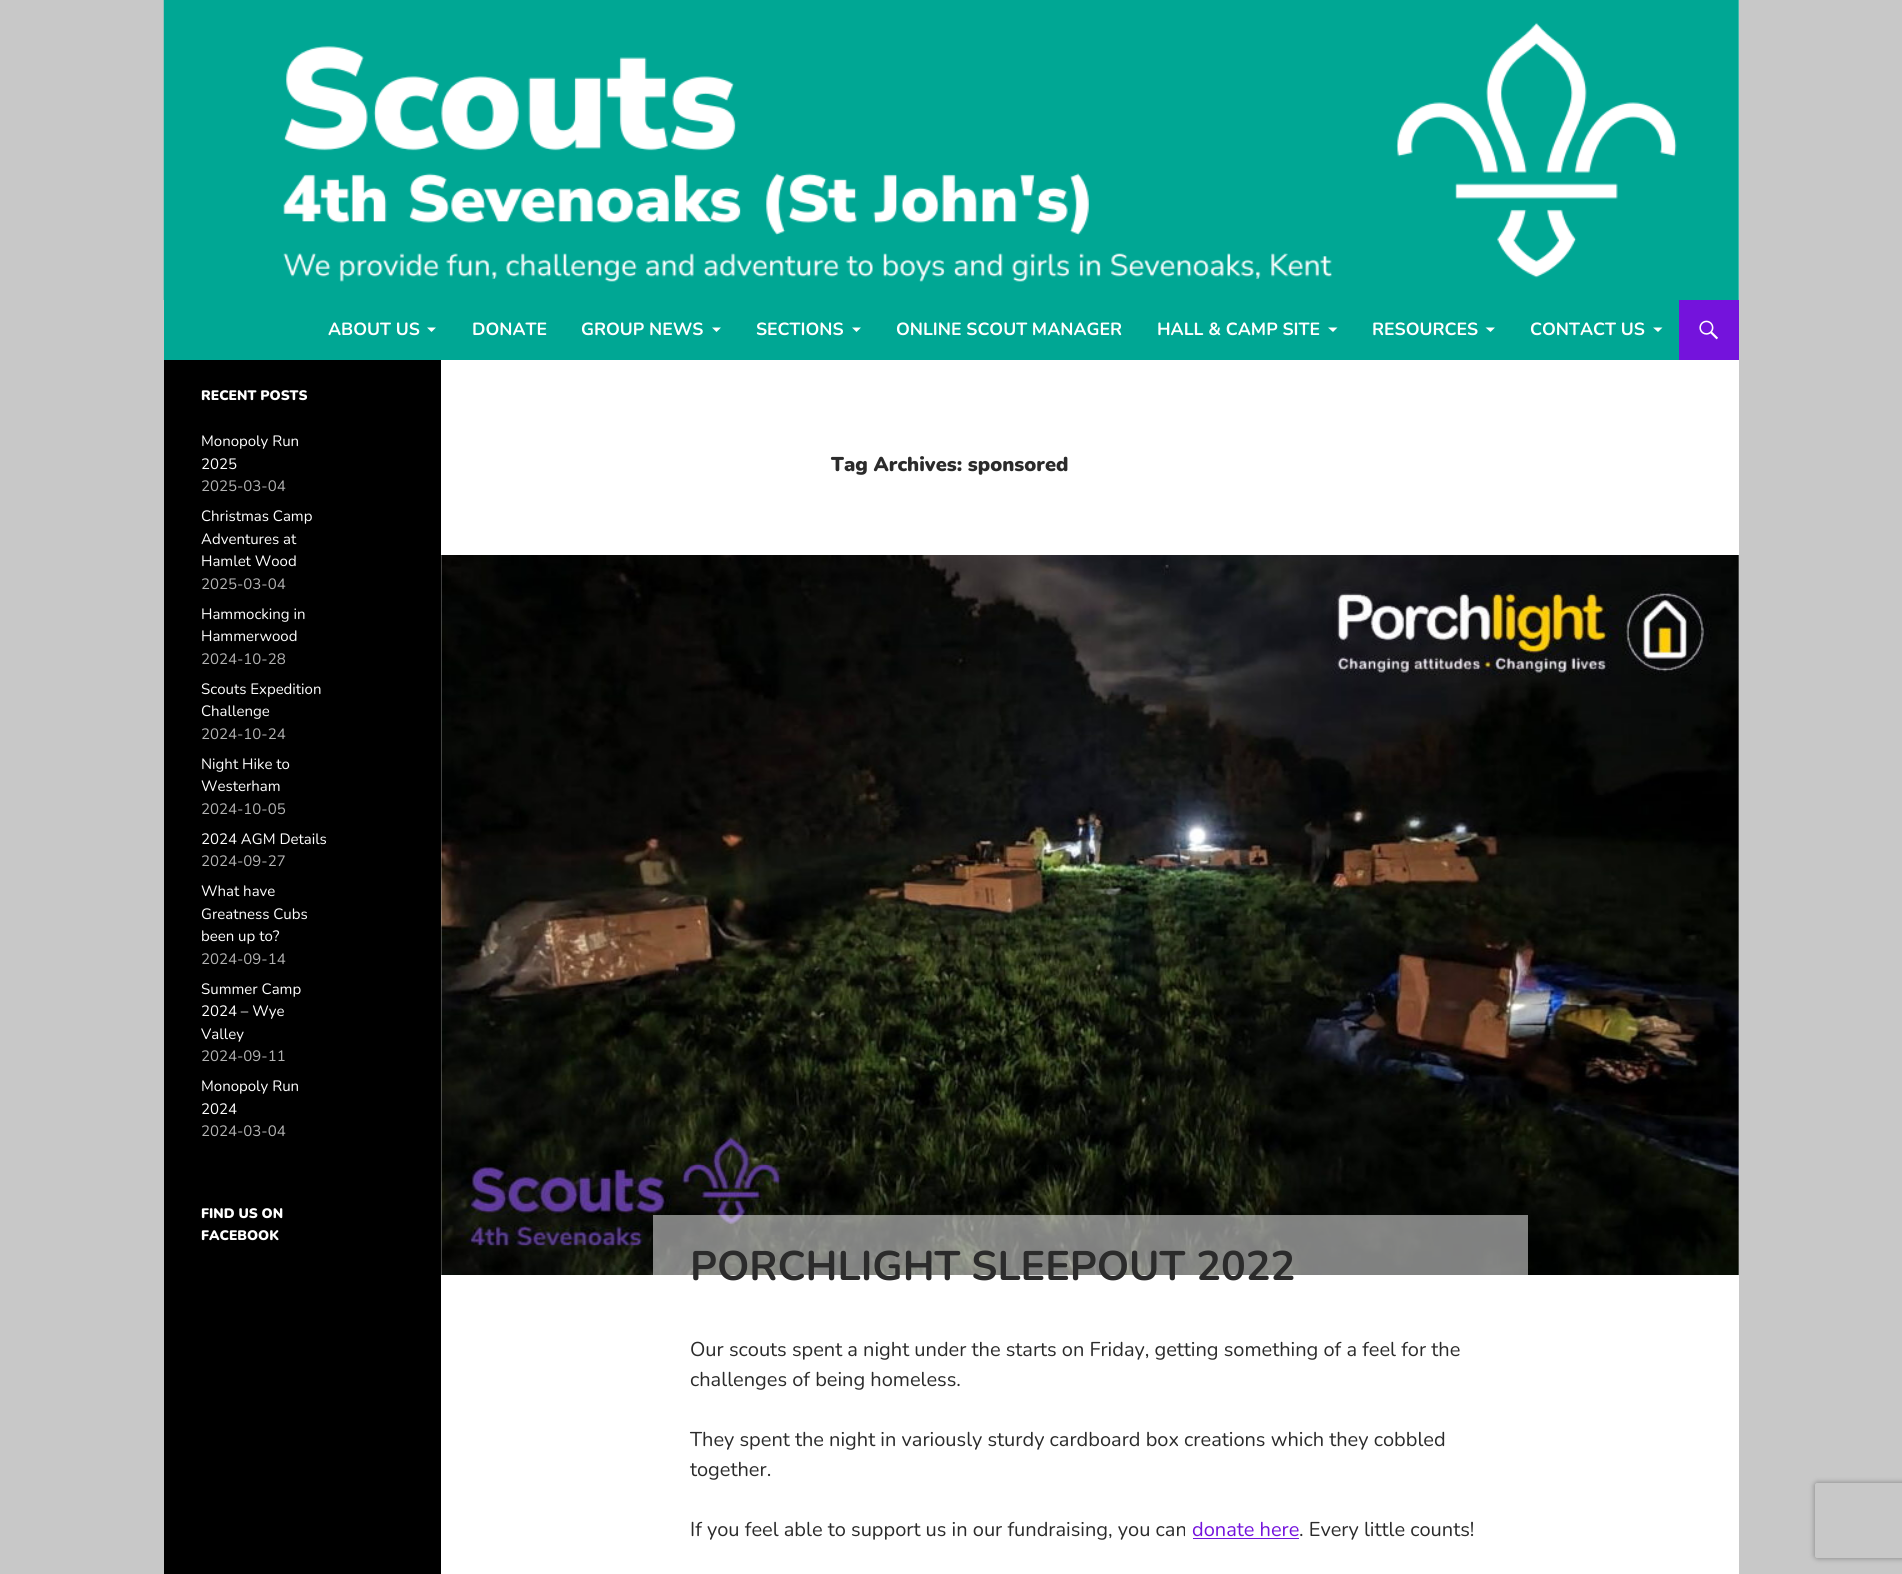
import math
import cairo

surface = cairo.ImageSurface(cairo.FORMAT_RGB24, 1902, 1574)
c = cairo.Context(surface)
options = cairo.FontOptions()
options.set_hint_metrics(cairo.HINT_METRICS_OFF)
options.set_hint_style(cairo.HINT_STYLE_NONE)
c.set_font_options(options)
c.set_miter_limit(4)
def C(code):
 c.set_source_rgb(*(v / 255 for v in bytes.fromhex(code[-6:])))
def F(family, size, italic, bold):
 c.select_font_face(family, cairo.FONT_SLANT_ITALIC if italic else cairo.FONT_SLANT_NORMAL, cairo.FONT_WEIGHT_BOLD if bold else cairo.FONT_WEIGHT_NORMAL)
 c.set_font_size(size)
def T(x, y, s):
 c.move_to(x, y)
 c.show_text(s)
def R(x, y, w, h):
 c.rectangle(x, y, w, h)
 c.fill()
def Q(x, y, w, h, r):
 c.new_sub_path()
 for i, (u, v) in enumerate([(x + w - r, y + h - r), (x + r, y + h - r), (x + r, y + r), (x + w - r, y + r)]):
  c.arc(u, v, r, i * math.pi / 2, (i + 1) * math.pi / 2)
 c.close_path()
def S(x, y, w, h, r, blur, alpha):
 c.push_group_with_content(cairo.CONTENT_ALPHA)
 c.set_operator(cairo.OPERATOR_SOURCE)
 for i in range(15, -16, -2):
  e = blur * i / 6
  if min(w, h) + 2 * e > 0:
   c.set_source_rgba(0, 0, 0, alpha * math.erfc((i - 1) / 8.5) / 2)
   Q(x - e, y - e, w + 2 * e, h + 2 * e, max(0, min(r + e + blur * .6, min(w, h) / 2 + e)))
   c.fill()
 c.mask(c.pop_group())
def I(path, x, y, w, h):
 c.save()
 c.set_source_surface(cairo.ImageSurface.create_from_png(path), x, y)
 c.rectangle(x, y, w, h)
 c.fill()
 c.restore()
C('c8c8c8')
c.paint()
C('ffffff')
R(441,0,1298,1574)
I('1.png',163,0,1576,300)
C('00a794')
R(164,300,1515,60)
F('Nunito',17.6,0,1)
C('ffffff')
T(328,335,'ABOUT US')
c.new_path()
c.move_to(427,327.5)
c.line_to(436,327.5)
c.line_to(431.5,332)
c.close_path()
c.fill()
T(472,335,'DONATE')
T(581,335,'GROUP NEWS')
c.new_path()
c.move_to(712,327.5)
c.line_to(721,327.5)
c.line_to(716.5,332)
c.close_path()
c.fill()
T(756,335,'SECTIONS')
c.new_path()
c.move_to(852,327.5)
c.line_to(861,327.5)
c.line_to(856.5,332)
c.close_path()
c.fill()
T(896,335,'ONLINE SCOUT MANAGER')
T(1157,335,'HALL & CAMP SITE')
c.new_path()
c.move_to(1328,327.5)
c.line_to(1337.5,327.5)
c.line_to(1333,332)
c.close_path()
c.fill()
T(1372,335,'RESOURCES')
c.new_path()
c.move_to(1485.5,327.5)
c.line_to(1495,327.5)
c.line_to(1490.5,332)
c.close_path()
c.fill()
T(1530,335,'CONTACT US')
c.new_path()
c.move_to(1653,327.5)
c.line_to(1662.5,327.5)
c.line_to(1658,332)
c.close_path()
c.fill()
C('7413dc')
R(1679,300,60,60)
I('2.png',1699,320,19,20)
C('000000')
R(164,360,277,1214)
F('Nunito Black',13.75,0,0)
C('ffffff')
T(201,400,'RECENT POSTS')
F('Nunito',15,0,0)
T(201,446,'Monopoly Run')
T(201,469,'2025')
C('b3b3b3')
T(201,491,'2025-03-04')
C('ffffff')
T(201,521,'Christmas Camp')
T(201,544,'Adventures at')
T(201,566,'Hamlet Wood')
C('b3b3b3')
T(201,589,'2025-03-04')
C('ffffff')
T(201,619,'Hammocking in')
T(201,641,'Hammerwood')
C('b3b3b3')
T(201,664,'2024-10-28')
C('ffffff')
T(201,694,'Scouts Expedition')
T(201,716,'Challenge')
C('b3b3b3')
T(201,739,'2024-10-24')
C('ffffff')
T(201,769,'Night Hike to')
T(201,791,'Westerham')
C('b3b3b3')
T(201,814,'2024-10-05')
C('ffffff')
T(201,844,'2024 AGM Details')
C('b3b3b3')
T(201,866,'2024-09-27')
C('ffffff')
T(201,896,'What have')
T(201,919,'Greatness Cubs')
T(201,941,'been up to?')
C('b3b3b3')
T(201,964,'2024-09-14')
C('ffffff')
T(201,994,'Summer Camp')
T(201,1016,'2024 – Wye')
T(201,1039,'Valley')
C('b3b3b3')
T(201,1061,'2024-09-11')
C('ffffff')
T(201,1091,'Monopoly Run')
T(201,1114,'2024')
C('b3b3b3')
T(201,1136,'2024-03-04')
F('Nunito Black',13.75,0,0)
C('ffffff')
T(201,1218,'FIND US ON')
T(201,1240,'FACEBOOK')
F('Nunito Black',20,0,0)
C('2b2b2b')
T(831,471,'Tag Archives: sponsored')
I('3.png',441,555,1298,720)
I('4.png',441,555,1298,720)
c.set_source_rgba(1,1,1,0.5)
R(653,1215,875,60)
F('Nunito',41.25,0,1)
C('2b2b2b')
T(690,1280,'PORCHLIGHT SLEEPOUT 2022')
F('Nunito',20,0,0)
T(690,1356,'Our scouts spent a night under the starts on Friday, getting something of a feel for the')
T(690,1386,'challenges of being homeless.')
T(690,1446,'They spent the night in variously sturdy cardboard box creations which they cobbled')
T(690,1476,'together.')
T(690,1536,'If you feel able to support us in our fundraising, you can')
C('7413dc')
T(1192,1536,'donate here')
R(1193,1538,106,1)
C('2b2b2b')
T(1299,1536,'. Every little counts!')
c.save()
c.set_fill_rule(cairo.FILL_RULE_EVEN_ODD)
c.new_path()
c.move_to(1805,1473)
c.line_to(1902,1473)
c.line_to(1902,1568)
c.line_to(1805,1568)
c.close_path()
c.move_to(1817.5,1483)
c.line_to(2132.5,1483)
c.curve_to(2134,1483,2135,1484,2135,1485.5)
c.line_to(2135,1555.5)
c.curve_to(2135,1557,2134,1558,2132.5,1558)
c.line_to(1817.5,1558)
c.curve_to(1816,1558,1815,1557,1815,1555.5)
c.line_to(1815,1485.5)
c.curve_to(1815,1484,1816,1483,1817.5,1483)
c.close_path()
c.clip()
C('808080')
S(1815,1483,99,75,2.5,3,1)
c.restore()
surface.write_to_png('o.png')
